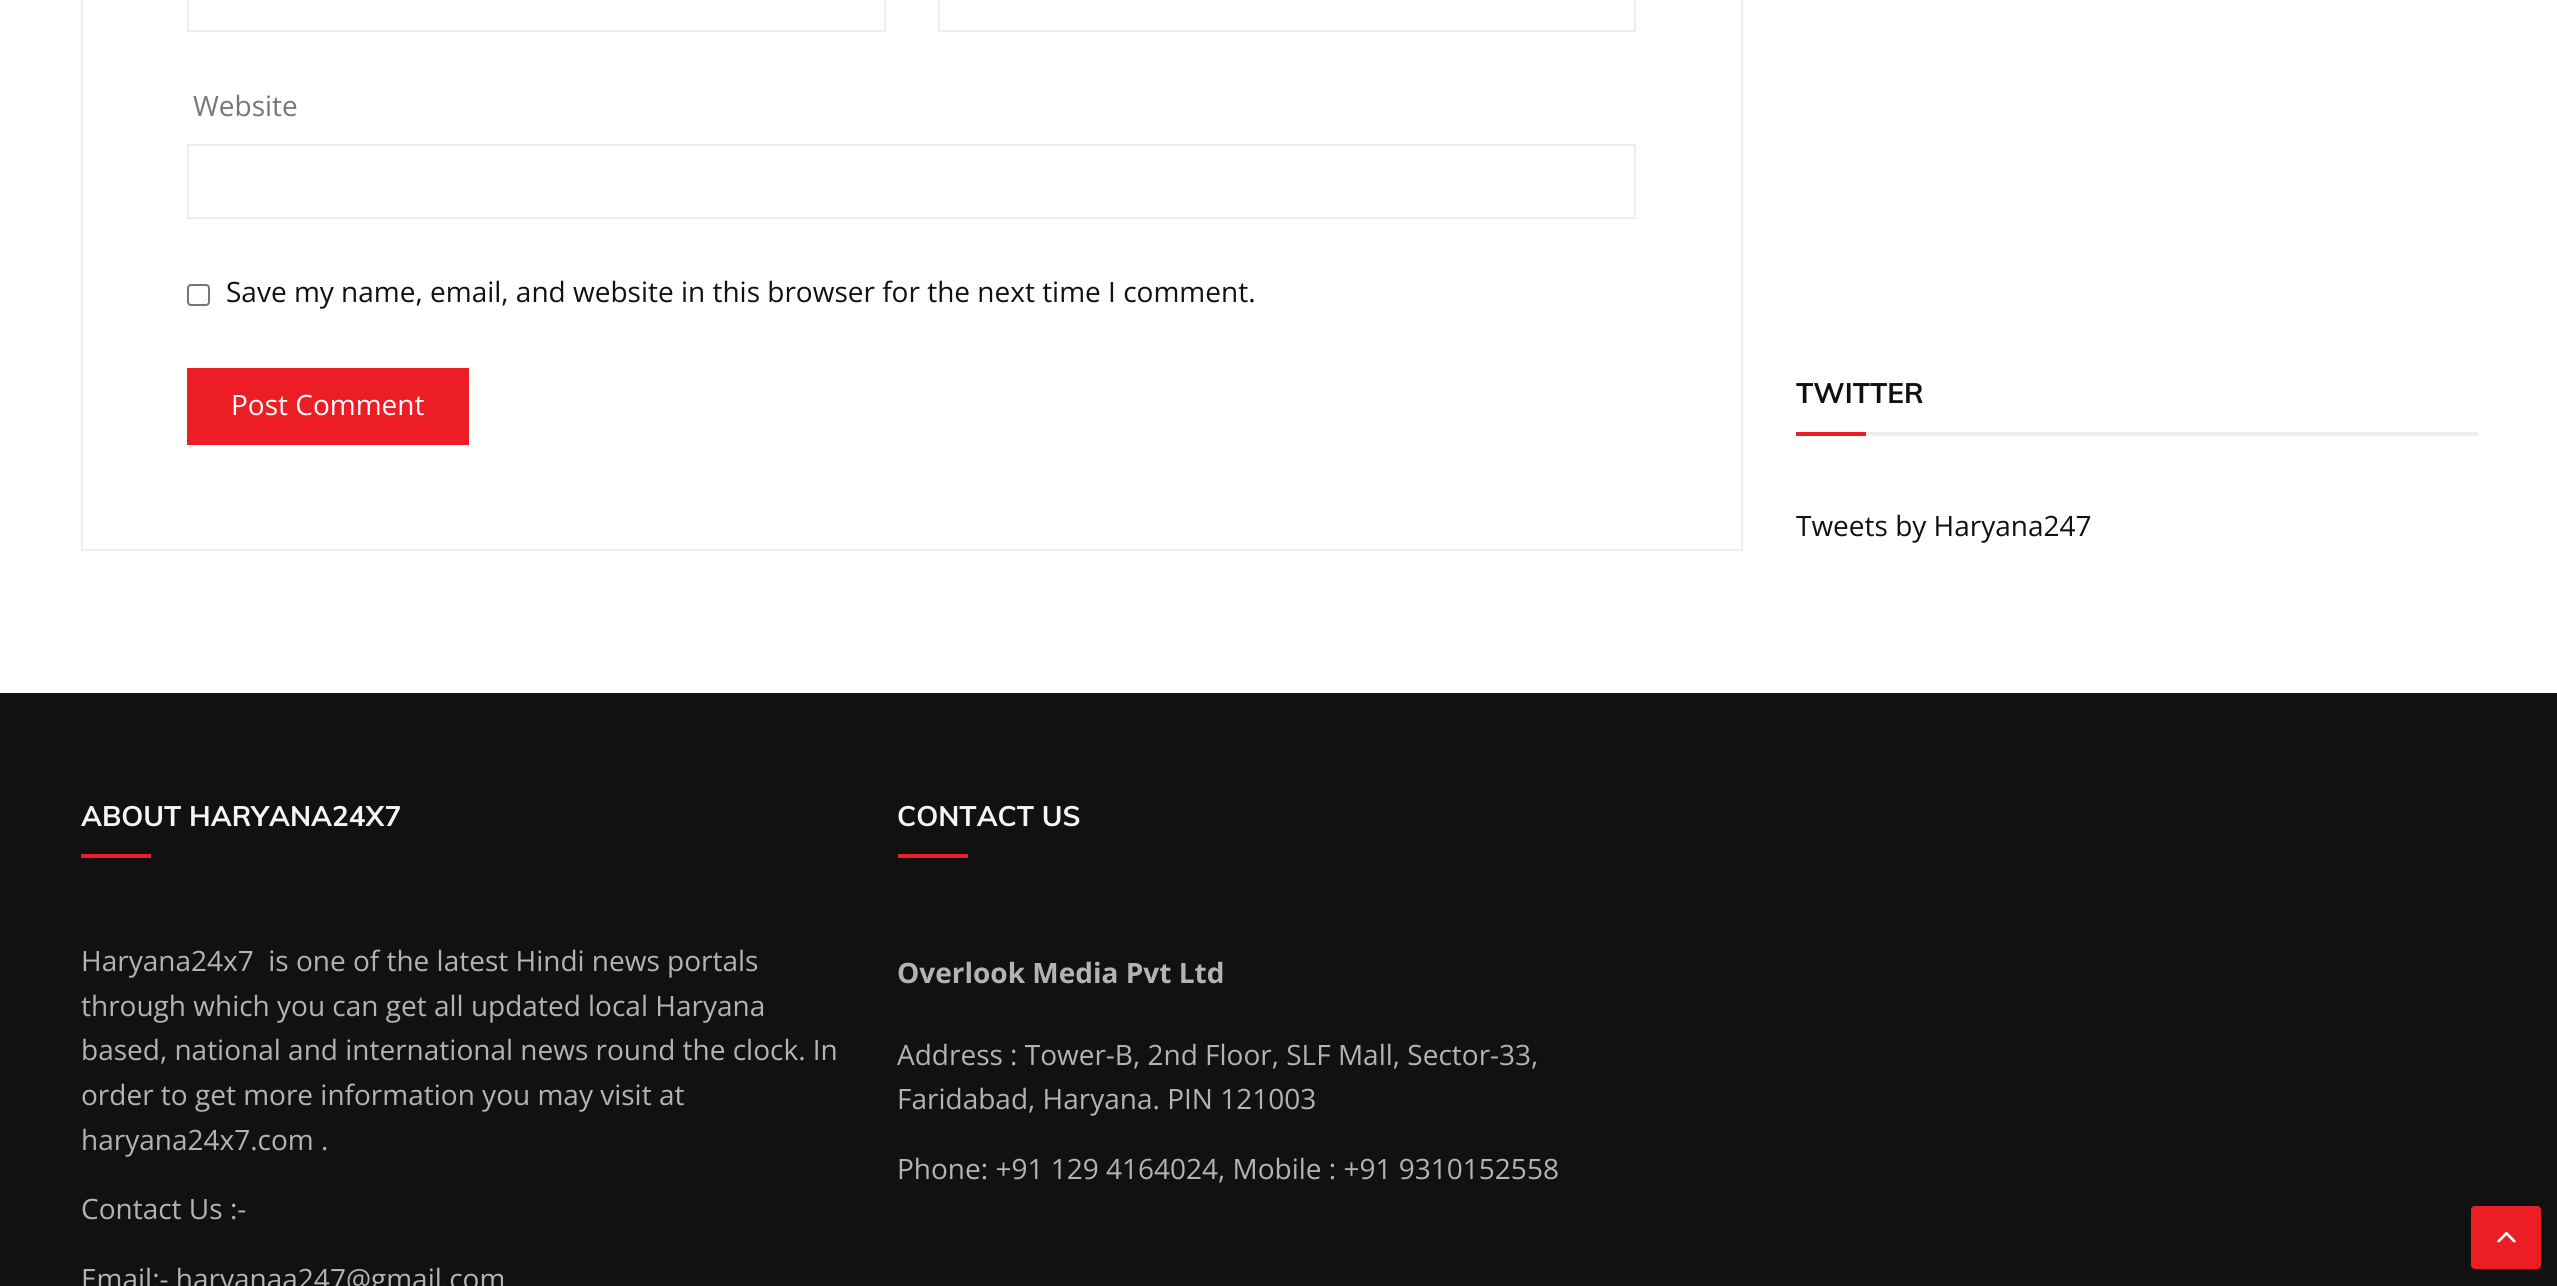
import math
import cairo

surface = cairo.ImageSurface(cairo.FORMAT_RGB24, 2557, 1286)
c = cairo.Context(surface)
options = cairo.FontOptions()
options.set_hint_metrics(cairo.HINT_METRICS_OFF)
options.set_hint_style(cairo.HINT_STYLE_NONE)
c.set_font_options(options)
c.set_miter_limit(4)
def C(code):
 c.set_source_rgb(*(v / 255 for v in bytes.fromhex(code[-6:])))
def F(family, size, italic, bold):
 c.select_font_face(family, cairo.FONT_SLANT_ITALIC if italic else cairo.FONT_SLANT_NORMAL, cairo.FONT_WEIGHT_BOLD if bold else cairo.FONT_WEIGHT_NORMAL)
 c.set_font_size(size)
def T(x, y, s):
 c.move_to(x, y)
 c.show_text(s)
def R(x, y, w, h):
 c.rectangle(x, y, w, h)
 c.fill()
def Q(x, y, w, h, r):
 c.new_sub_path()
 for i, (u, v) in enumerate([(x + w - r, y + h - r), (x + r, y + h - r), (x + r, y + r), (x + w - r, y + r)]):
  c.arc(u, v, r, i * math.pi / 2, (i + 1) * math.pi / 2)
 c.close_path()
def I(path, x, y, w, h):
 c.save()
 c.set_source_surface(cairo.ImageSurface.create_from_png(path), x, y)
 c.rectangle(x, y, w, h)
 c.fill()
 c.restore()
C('ffffff')
c.paint()
c.rectangle(82,-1,1660,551)
C('eeeeee')
c.stroke()
c.rectangle(188,-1,697,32)
c.stroke()
c.rectangle(939,-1,696,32)
c.stroke()
F('Open Sans',28,0,0)
C('777777')
T(193,116,'Website')
c.rectangle(188,145,1447,73)
C('eeeeee')
c.stroke()
Q(188,285,21,20,3)
C('767676')
c.stroke()
C('111111')
T(226,302,'Save my name, email, and website in this browser for the next time I comment.')
C('ed1d25')
R(187,368,282,77)
C('ffffff')
T(231,415,'Post Comment')
C('eeeeee')
R(1866,432,612,4)
F('Muli',28,0,1)
C('111111')
T(1796,403,'TWITTER')
C('ed1d25')
R(1796,432,70,4)
F('Open Sans',28,0,0)
C('111111')
T(1796,536,'Tweets by Haryana247')
R(0,693,2557,593)
F('Muli',28,0,1)
C('f5f5f5')
T(81,826,'ABOUT HARYANA24X7')
C('ed1d25')
R(81,854,70,4)
F('Open Sans',28,0,0)
C('b3b3b3')
T(81,971,'Haryana24x7  is one of the latest Hindi news portals')
T(81,1016,'through which you can get all updated local Haryana')
T(81,1060,'based, national and international news round the clock. In')
T(81,1105,'order to get more information you may visit at')
T(81,1150,'haryana24x7.com .')
T(81,1219,'Contact Us :-')
T(81,1289,'Email:- haryanaa247@gmail.com')
F('Muli',28,0,1)
C('f5f5f5')
T(897,826,'CONTACT US')
C('ed1d25')
R(898,854,70,4)
F('Open Sans',28,0,1)
C('b3b3b3')
T(897,983,'Overlook Media Pvt Ltd')
F('Open Sans',28,0,0)
T(897,1065,'Address : Tower-B, 2nd Floor, SLF Mall, Sector-33,')
T(897,1109,'Faridabad, Haryana. PIN 121003')
T(897,1179,'Phone: +91 129 4164024, Mobile : +91 9310152558')
C('ed1d25')
Q(2471,1206,70,63,4)
c.fill()
I('1.png',2497,1231,19,12)
surface.write_to_png('o.png')
